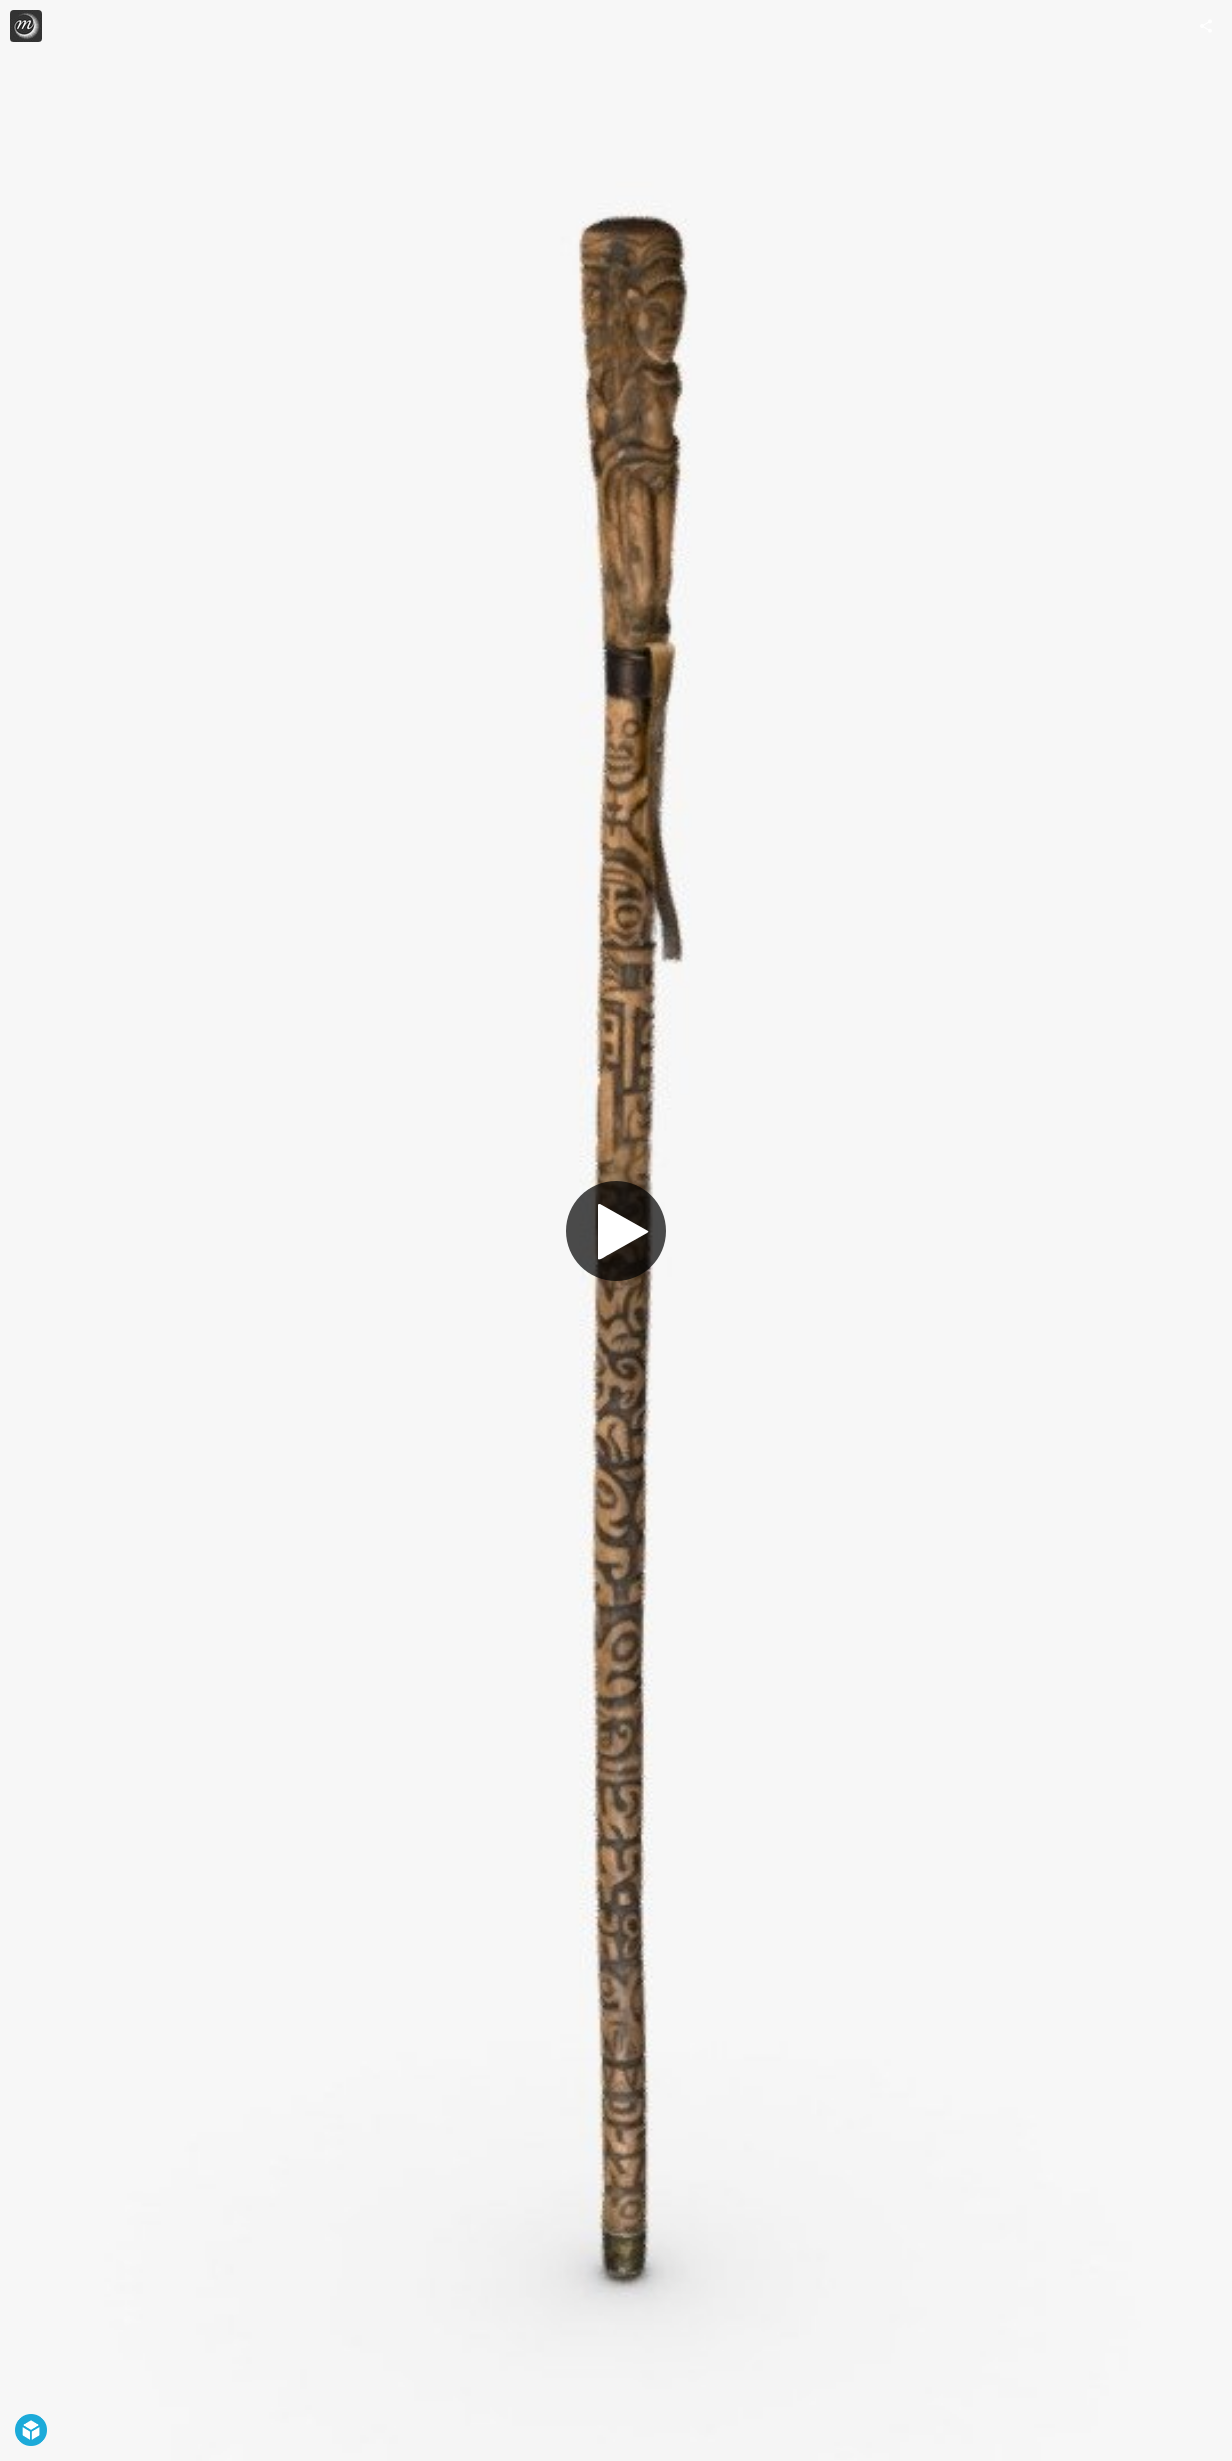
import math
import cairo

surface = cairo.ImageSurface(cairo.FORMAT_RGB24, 1232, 2461)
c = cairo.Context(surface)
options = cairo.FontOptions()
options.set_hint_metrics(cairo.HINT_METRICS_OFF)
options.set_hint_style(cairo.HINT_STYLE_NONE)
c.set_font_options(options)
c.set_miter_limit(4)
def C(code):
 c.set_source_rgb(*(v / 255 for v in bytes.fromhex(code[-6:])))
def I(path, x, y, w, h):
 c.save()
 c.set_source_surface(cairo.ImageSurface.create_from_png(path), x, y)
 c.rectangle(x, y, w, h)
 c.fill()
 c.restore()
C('ffffff')
c.paint()
I('1.png',0,0,1232,2461)
c.set_source_rgba(0,0,0,0.7)
c.arc(616,1231,50,0,2 * math.pi)
c.fill()
C('ffffff')
c.new_path()
c.move_to(647,1233)
c.line_to(608,1255)
c.curve_to(607,1255,600,1261,598,1259)
c.line_to(598,1205)
c.curve_to(598,1204,599,1204,600,1204)
c.line_to(648,1231)
c.curve_to(649,1232,648,1232,647,1233)
c.close_path()
c.fill()
I('2.png',15,2414,32,32)
I('3.png',10,10,32,32)
I('4.png',1200,19,12,14)
surface.write_to_png('o.png')
